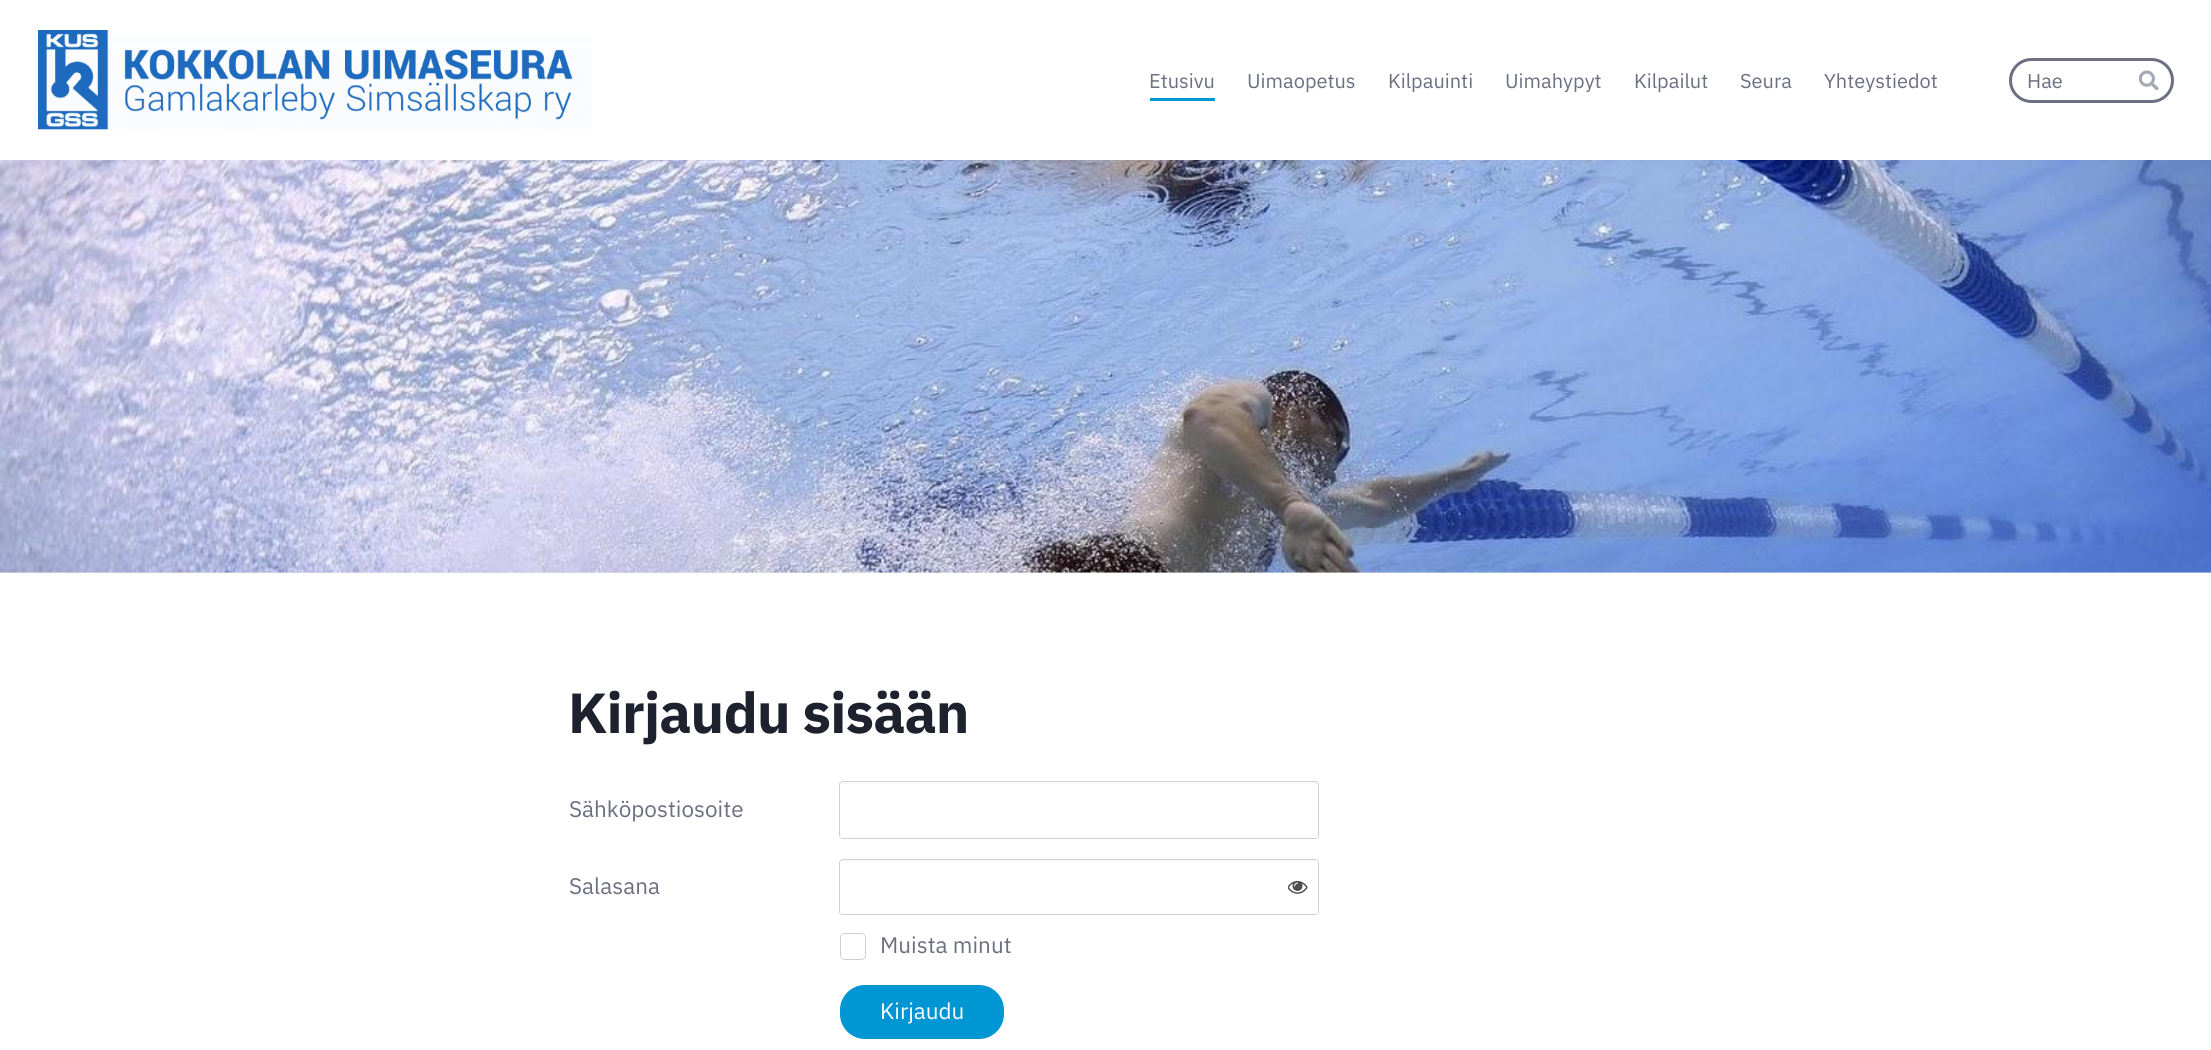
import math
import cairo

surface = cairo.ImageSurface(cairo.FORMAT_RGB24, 2211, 1050)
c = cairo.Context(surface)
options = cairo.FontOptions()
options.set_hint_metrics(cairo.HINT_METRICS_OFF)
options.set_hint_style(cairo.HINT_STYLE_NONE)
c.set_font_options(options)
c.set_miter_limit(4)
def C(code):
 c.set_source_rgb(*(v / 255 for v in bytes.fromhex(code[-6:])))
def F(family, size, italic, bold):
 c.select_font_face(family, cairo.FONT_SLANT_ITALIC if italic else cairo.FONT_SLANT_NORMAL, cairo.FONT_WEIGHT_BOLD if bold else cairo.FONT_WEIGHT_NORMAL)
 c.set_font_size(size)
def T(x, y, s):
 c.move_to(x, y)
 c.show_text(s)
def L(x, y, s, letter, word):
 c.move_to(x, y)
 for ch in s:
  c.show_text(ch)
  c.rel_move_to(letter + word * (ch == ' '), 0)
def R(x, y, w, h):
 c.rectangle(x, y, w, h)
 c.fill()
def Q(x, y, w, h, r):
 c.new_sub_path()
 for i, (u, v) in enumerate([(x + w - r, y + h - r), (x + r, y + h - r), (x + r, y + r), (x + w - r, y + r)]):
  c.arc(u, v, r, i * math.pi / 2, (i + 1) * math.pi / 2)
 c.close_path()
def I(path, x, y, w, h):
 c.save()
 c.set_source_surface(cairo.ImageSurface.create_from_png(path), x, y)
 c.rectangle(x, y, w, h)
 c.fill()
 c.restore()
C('ffffff')
c.paint()
C('e2e6e9')
R(0,572,2211,1)
I('1.png',0,160,2211,413)
I('2.png',38,30,554,100)
F('IBM Plex Sans',20,0,0)
C('6b6f80')
T(1149,88,'Etusivu')
C('0096d3')
R(1150,98,65,3)
C('6b6f80')
T(1247,88,'Uimaopetus')
T(1388,88,'Kilpauinti')
T(1505,88,'Uimahypyt')
T(1634,88,'Kilpailut')
T(1740,88,'Seura')
T(1824,88,'Yhteystiedot')
Q(2010.5,59.5,162,42,21)
c.set_line_width(3)
c.stroke()
T(2027,88,'Hae')
I('3.png',2139,70,20,20)
F('IBM Plex Sans',56.5,0,1)
C('1e212e')
L(568,733,'Kirjaudu sisään',-.8,0)
F('IBM Plex Sans',22.5,0,0)
C('6b6f80')
T(569,817,'Sähköpostiosoite')
Q(839.5,781.5,479,57,3.5)
C('cbd0d0')
c.set_line_width(1)
c.stroke()
C('ffffff')
Q(840,783,478,55,2.5)
c.fill()
C('f5f5f6')
c.new_path()
c.move_to(842,784)
c.line_to(1315,784)
c.curve_to(1316,784,1318,785,1318,786)
c.curve_to(1318,784,1317,783,1316,783)
c.line_to(842,783)
c.curve_to(841,783,840,784,840,786)
c.curve_to(840,785,841,784,842,784)
c.close_path()
c.fill()
C('6b6f80')
T(569,894,'Salasana')
Q(839.5,859.5,479,55,3.5)
C('cbd0d0')
c.stroke()
C('ffffff')
Q(840,860,478,54,2.5)
c.fill()
c.set_source_rgba(0.247,0.247,0.267,0.05)
c.new_path()
c.move_to(842,861)
c.line_to(1315,861)
c.curve_to(1316,861,1318,862,1318,864)
c.curve_to(1318,862,1318,860,1316,860)
c.line_to(842,860)
c.line_to(840,861)
c.line_to(840,864)
c.curve_to(840,862,841,861,842,861)
c.close_path()
c.fill()
I('4.png',1288,881,20,13)
Q(840.5,933.5,25,26,4.5)
C('cbd0d0')
c.stroke()
C('ffffff')
Q(841,934,24,25,4)
c.fill()
C('6b6f80')
T(880,953,'Muista minut')
C('0096d3')
Q(840,985,164,54,25)
c.fill()
C('ffffff')
T(880,1019,'Kirjaudu')
surface.write_to_png('o.png')
